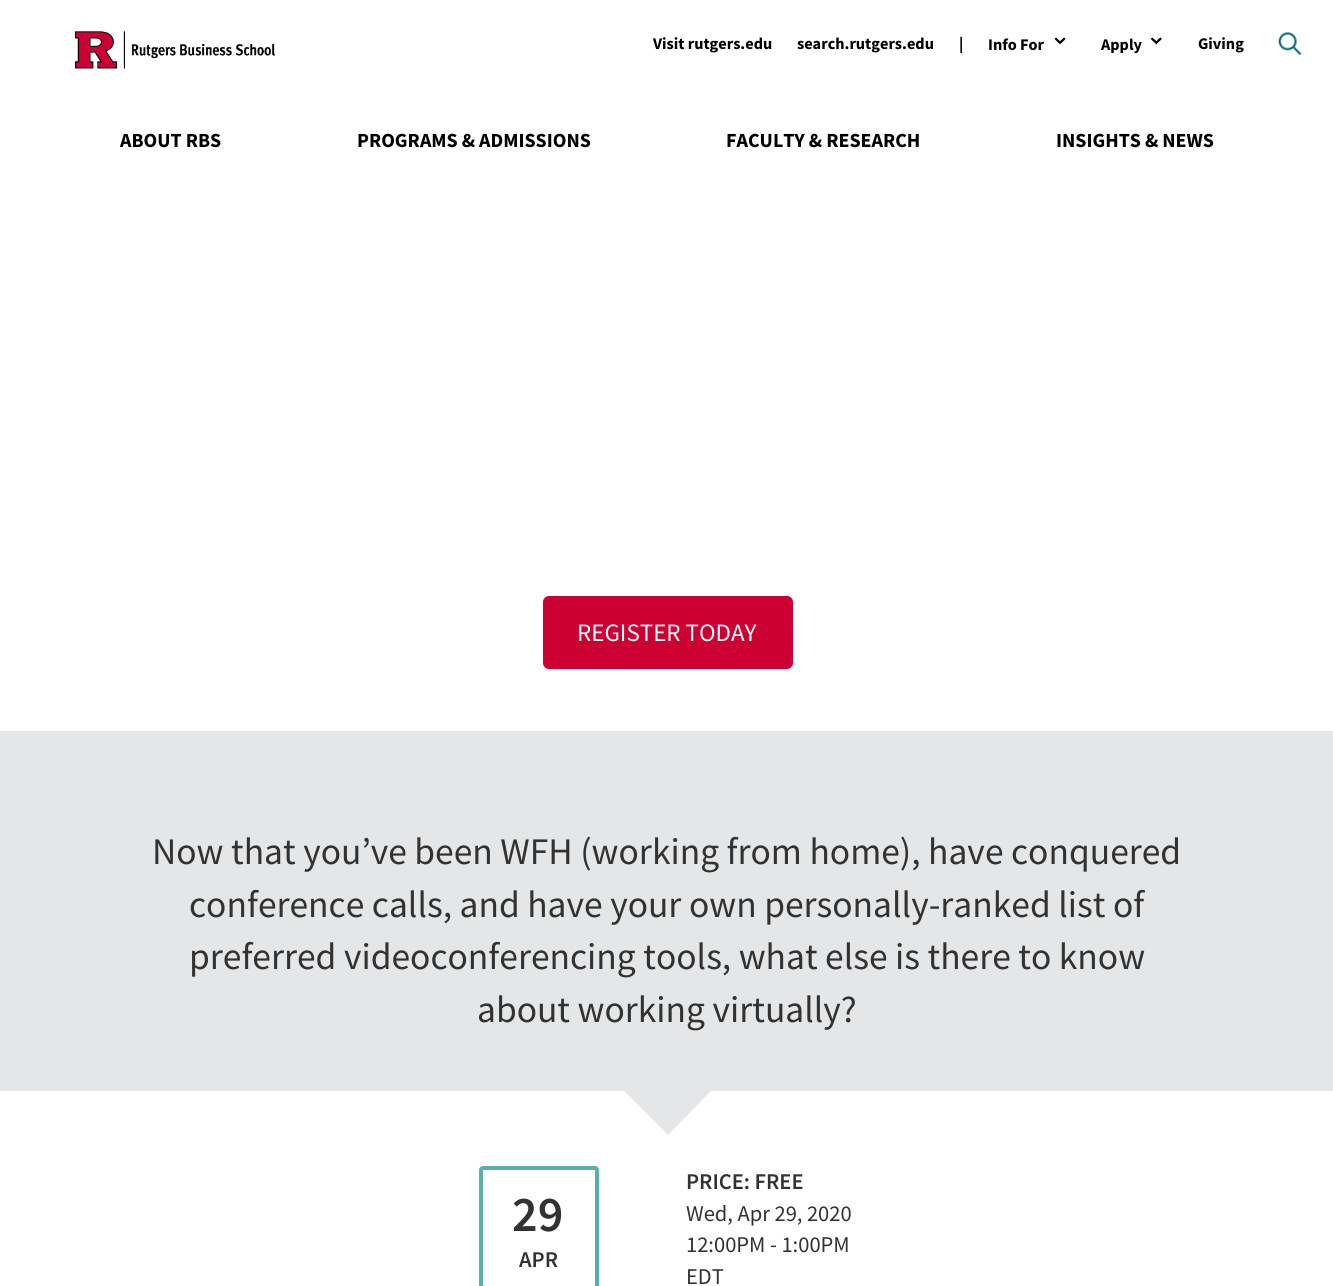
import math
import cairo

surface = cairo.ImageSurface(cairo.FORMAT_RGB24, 1333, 1286)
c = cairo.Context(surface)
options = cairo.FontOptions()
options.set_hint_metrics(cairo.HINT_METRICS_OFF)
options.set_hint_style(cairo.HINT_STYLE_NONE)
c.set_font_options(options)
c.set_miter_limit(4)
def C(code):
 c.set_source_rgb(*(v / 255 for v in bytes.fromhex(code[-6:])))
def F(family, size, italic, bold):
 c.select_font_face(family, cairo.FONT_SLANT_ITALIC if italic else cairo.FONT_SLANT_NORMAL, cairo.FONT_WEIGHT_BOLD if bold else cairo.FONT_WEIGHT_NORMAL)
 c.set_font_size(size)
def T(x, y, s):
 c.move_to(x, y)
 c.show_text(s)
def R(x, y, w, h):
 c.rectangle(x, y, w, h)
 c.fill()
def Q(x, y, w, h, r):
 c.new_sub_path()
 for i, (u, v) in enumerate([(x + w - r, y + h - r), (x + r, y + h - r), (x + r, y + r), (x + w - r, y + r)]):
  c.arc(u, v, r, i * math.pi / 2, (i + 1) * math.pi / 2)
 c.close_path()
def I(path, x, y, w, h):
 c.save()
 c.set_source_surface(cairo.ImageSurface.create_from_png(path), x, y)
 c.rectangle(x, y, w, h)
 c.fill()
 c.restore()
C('ffffff')
c.paint()
I('1.png',75,31,200,38)
F('Source Sans Pro',16.25,0,1)
C('000000')
T(653,49,'Visit rutgers.edu')
T(797,49,'search.rutgers.edu')
T(959,49,'|')
T(988,50,'Info For')
I('2.png',1054,37,12,8)
T(1101,50,'Apply')
I('3.png',1150,37,12,8)
T(1198,49,'Giving')
F('Source Sans Pro',20,0,1)
T(120,147,'ABOUT RBS')
T(357,147,'PROGRAMS & ADMISSIONS')
T(726,147,'FACULTY & RESEARCH')
T(1056,147,'INSIGHTS & NEWS')
I('4.png',1278,32,24,23)
C('e5e6e7')
R(0,731,1333,360)
C('cc0033')
Q(543,596,250,73,6)
c.fill()
F('Source Sans Pro',25,0,0)
C('ffffff')
T(577,641,'REGISTER TODAY')
F('Source Sans Pro',37.5,0,0)
C('323232')
T(152,864,'Now that you’ve been WFH (working from home), have conquered')
T(189,917,'conference calls, and have your own personally-ranked list of')
T(189,969,'preferred videoconferencing tools, what else is there to know')
T(477,1022,'about working virtually?')
C('e5e6e7')
c.new_path()
c.move_to(624,1091)
c.line_to(711,1091)
c.line_to(668,1135)
c.close_path()
c.fill()
F('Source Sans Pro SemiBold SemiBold',22.5,0,0)
C('323232')
T(686,1189,'PRICE: FREE')
Q(481,1168,116,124,2)
C('56b2a9')
c.set_line_width(4)
c.stroke()
F('Source Sans Pro SemiBold SemiBold',50,0,0)
C('323232')
T(512,1231,'29')
F('Source Sans Pro SemiBold SemiBold',22.5,0,0)
T(519,1267,'APR')
F('Source Sans Pro',22.5,0,0)
T(686,1221,'Wed, Apr 29, 2020')
T(686,1252,'12:00PM - 1:00PM')
T(686,1284,'EDT')
surface.write_to_png('o.png')
